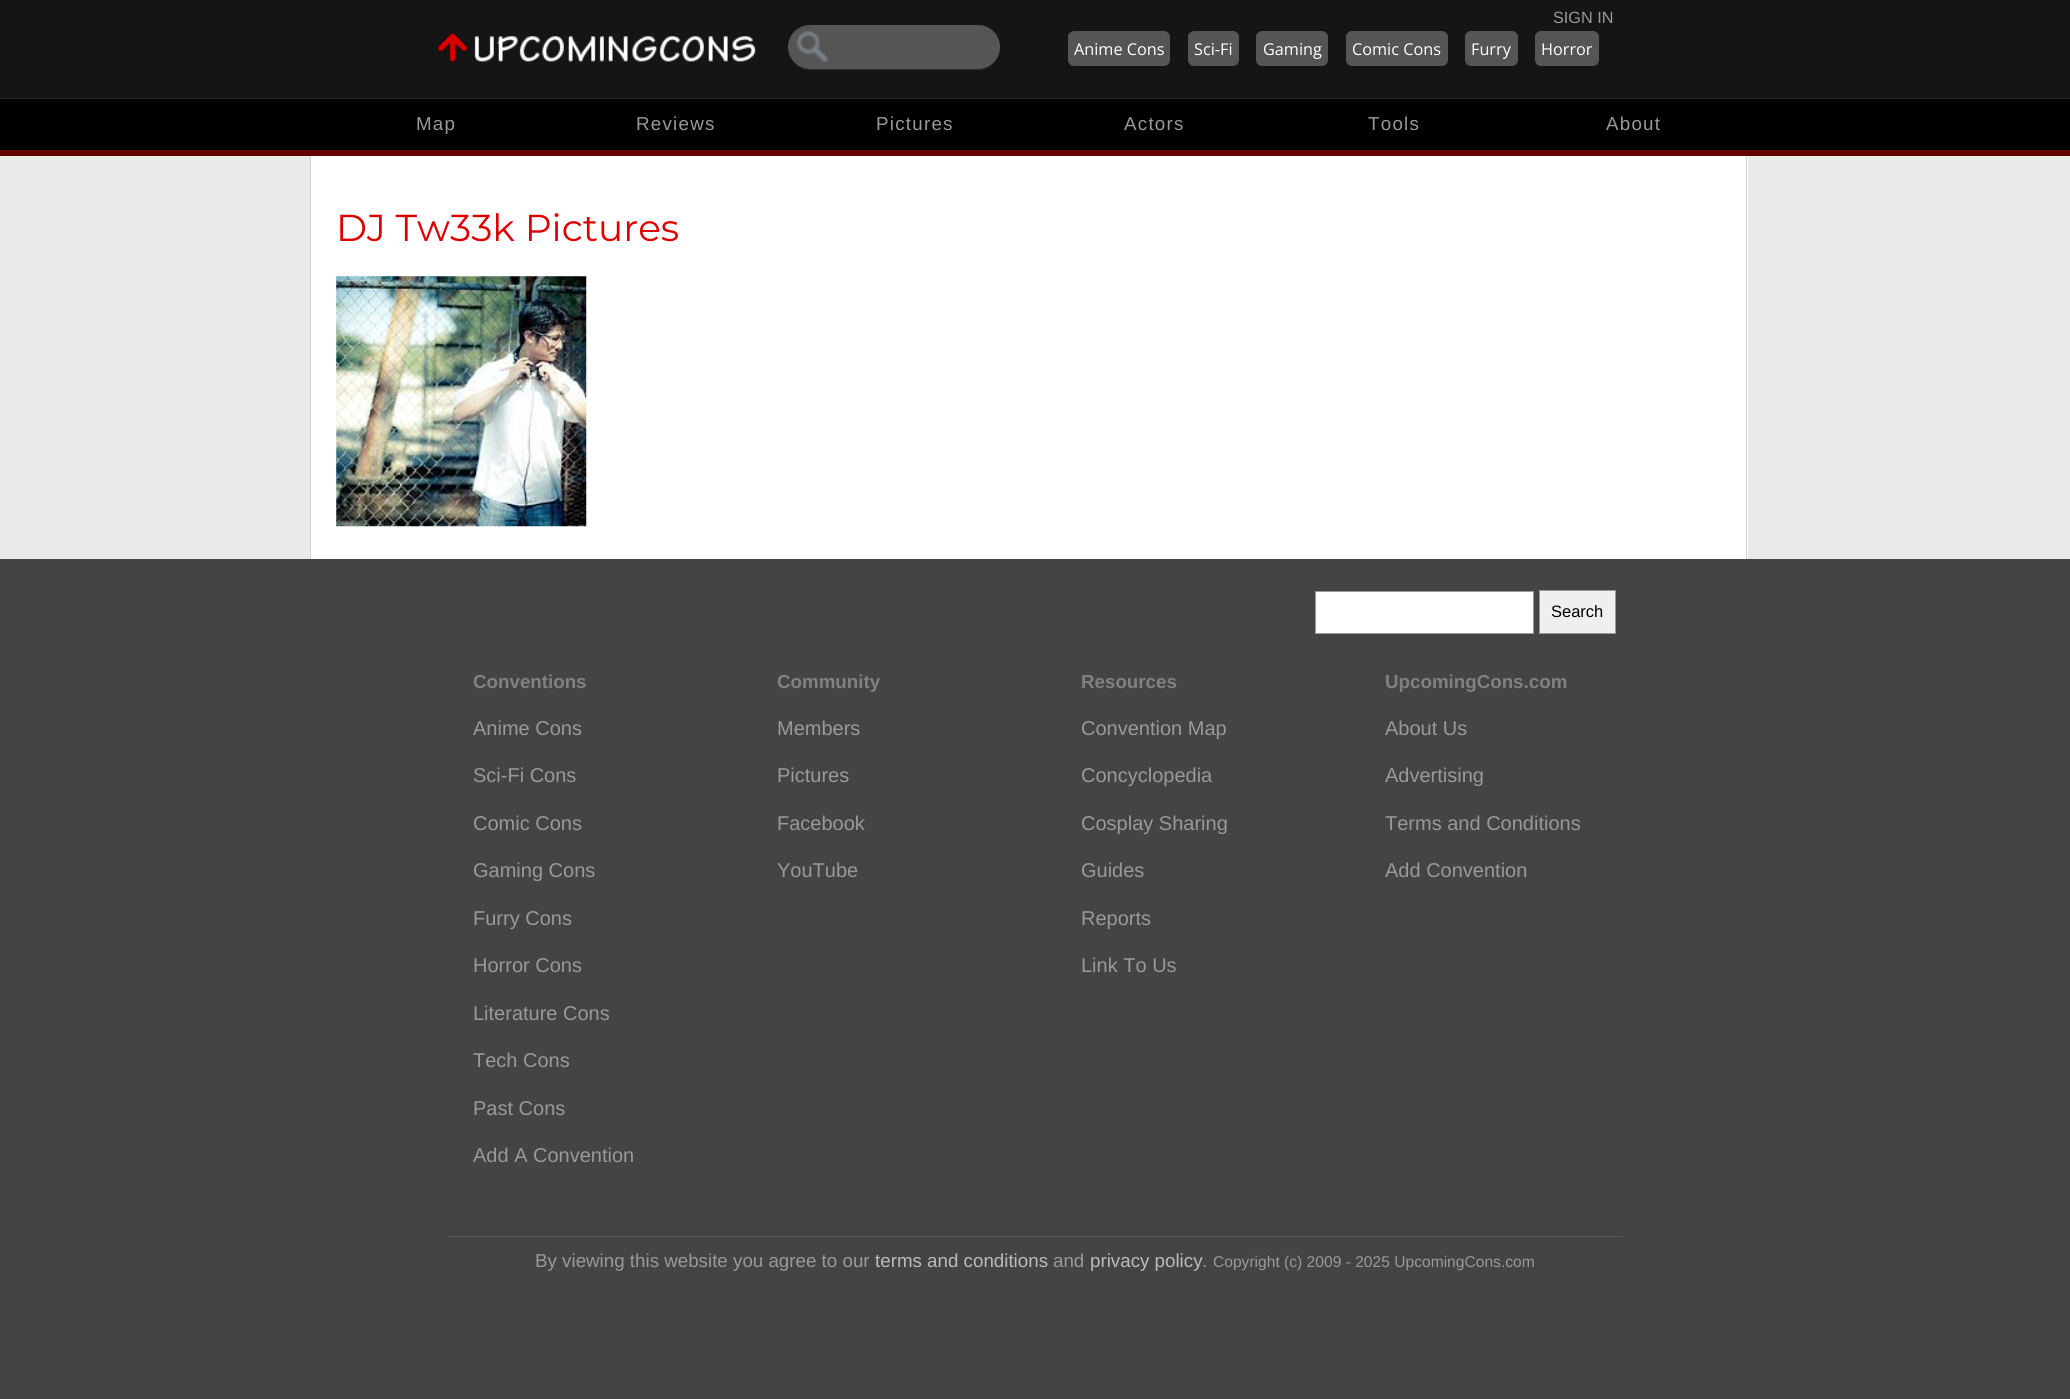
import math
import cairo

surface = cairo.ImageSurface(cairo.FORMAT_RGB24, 2070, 1399)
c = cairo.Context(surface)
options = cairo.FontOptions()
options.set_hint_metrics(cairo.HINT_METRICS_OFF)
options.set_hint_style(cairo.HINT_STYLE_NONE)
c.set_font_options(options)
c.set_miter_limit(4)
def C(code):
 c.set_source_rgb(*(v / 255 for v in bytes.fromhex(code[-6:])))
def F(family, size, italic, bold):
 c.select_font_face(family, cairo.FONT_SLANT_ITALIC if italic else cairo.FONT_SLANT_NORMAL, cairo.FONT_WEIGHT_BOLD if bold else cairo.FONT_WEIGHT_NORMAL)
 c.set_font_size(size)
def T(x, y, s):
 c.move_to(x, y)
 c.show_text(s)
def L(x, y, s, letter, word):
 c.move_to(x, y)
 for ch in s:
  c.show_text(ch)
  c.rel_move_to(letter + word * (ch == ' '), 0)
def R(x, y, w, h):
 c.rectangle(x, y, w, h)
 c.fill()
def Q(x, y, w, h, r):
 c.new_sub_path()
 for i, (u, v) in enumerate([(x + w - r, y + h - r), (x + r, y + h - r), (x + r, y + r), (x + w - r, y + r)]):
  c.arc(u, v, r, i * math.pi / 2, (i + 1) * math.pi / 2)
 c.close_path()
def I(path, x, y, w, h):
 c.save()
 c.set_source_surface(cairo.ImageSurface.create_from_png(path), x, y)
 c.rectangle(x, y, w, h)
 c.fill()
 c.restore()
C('444444')
c.paint()
C('151515')
R(0,0,2070,98)
C('292929')
R(0,98,2070,1)
F('Liberation Sans',16.25,0,0)
C('999999')
T(1553,23,'SIGN IN')
I('1.png',437,32,319,31)
C('2c2c2c')
c.new_path()
c.move_to(790,56)
c.curve_to(793,64,801,70,810,70)
c.line_to(978,70)
c.curve_to(990,70,1000,60,1000,48)
c.line_to(1000,47)
c.curve_to(1000,59,990,69,978,69)
c.line_to(809,69)
c.curve_to(801,69,793,64,790,56)
c.close_path()
c.fill()
C('555555')
Q(788,25,212,44,22)
c.fill()
I('2.png',796,31,33,32)
Q(1068,31,102,35,6)
c.fill()
F('Open Sans',16.25,0,0)
C('ffffff')
T(1074,55,'Anime Cons')
C('555555')
Q(1188,31,51,35,6)
c.fill()
C('ffffff')
T(1194,55,'Sci-Fi')
C('555555')
Q(1256,31,72,35,6)
c.fill()
C('ffffff')
T(1263,55,'Gaming')
C('555555')
Q(1346,31,102,35,6)
c.fill()
C('ffffff')
T(1352,55,'Comic Cons')
C('555555')
Q(1465,31,53,35,6)
c.fill()
C('ffffff')
T(1471,55,'Furry')
C('555555')
Q(1535,31,64,35,6)
c.fill()
C('ffffff')
T(1541,55,'Horror')
C('000000')
R(0,99,2070,51)
F('Liberation Sans',18.75,0,0)
C('999999')
L(416,130,'Map',1.25,0)
L(636,130,'Reviews',1.25,0)
L(876,130,'Pictures',1.25,0)
L(1124,130,'Actors',1.25,0)
L(1368,130,'Tools',1.25,0)
L(1606,130,'About',1.25,0)
C('660000')
R(0,150,2070,6)
C('eaeaea')
R(0,156,2070,403)
C('ffffff')
R(311,156,1437,403)
C('d1d1d1')
R(1746,156,1,403)
R(310,156,1,403)
F('Montserrat Thin',37.5,0,0)
C('dd0000')
T(336,241,'DJ Tw33k Pictures')
I('3.png',336,276,251,251)
C('ffffff')
c.rectangle(1315.5,591.5,218,42)
c.fill_preserve()
C('999999')
c.set_line_width(1)
c.stroke()
C('efefef')
c.rectangle(1539.5,590.5,76,43)
c.fill_preserve()
C('999999')
c.stroke()
F('Liberation Sans',16.5,0,0)
C('000000')
T(1551,617,'Search')
F('Liberation Sans',18.75,0,1)
C('818181')
T(473,688,'Conventions')
F('Liberation Sans',20,0,0)
C('999999')
T(473,735,'Anime Cons')
T(473,782,'Sci-Fi Cons')
T(473,830,'Comic Cons')
T(473,877,'Gaming Cons')
T(473,925,'Furry Cons')
T(473,972,'Horror Cons')
T(473,1020,'Literature Cons')
T(473,1067,'Tech Cons')
T(473,1115,'Past Cons')
T(473,1162,'Add A Convention')
F('Liberation Sans',18.75,0,1)
C('818181')
T(777,688,'Community')
F('Liberation Sans',20,0,0)
C('999999')
T(777,735,'Members')
T(777,782,'Pictures')
T(777,830,'Facebook')
T(777,877,'YouTube')
F('Liberation Sans',18.75,0,1)
C('818181')
T(1081,688,'Resources')
F('Liberation Sans',20,0,0)
C('999999')
T(1081,735,'Convention Map')
T(1081,782,'Concyclopedia')
T(1081,830,'Cosplay Sharing')
T(1081,877,'Guides')
T(1081,925,'Reports')
T(1081,972,'Link To Us')
F('Liberation Sans',18.75,0,1)
C('818181')
T(1385,688,'UpcomingCons.com')
F('Liberation Sans',20,0,0)
C('999999')
T(1385,735,'About Us')
T(1385,782,'Advertising')
T(1385,830,'Terms and Conditions')
T(1385,877,'Add Convention')
C('555555')
R(448,1236,1175,1)
F('Liberation Sans',18.75,0,0)
C('999999')
T(535,1267,'By viewing this website you agree to our')
C('bbbbbb')
T(875,1267,'terms and conditions')
C('999999')
T(1053,1267,'and')
C('bbbbbb')
T(1090,1267,'privacy policy')
C('999999')
T(1202,1267,'.')
F('Liberation Sans',15.6,0,0)
T(1213,1267,'Copyright (c) 2009 - 2025 UpcomingCons.com')
surface.write_to_png('o.png')
